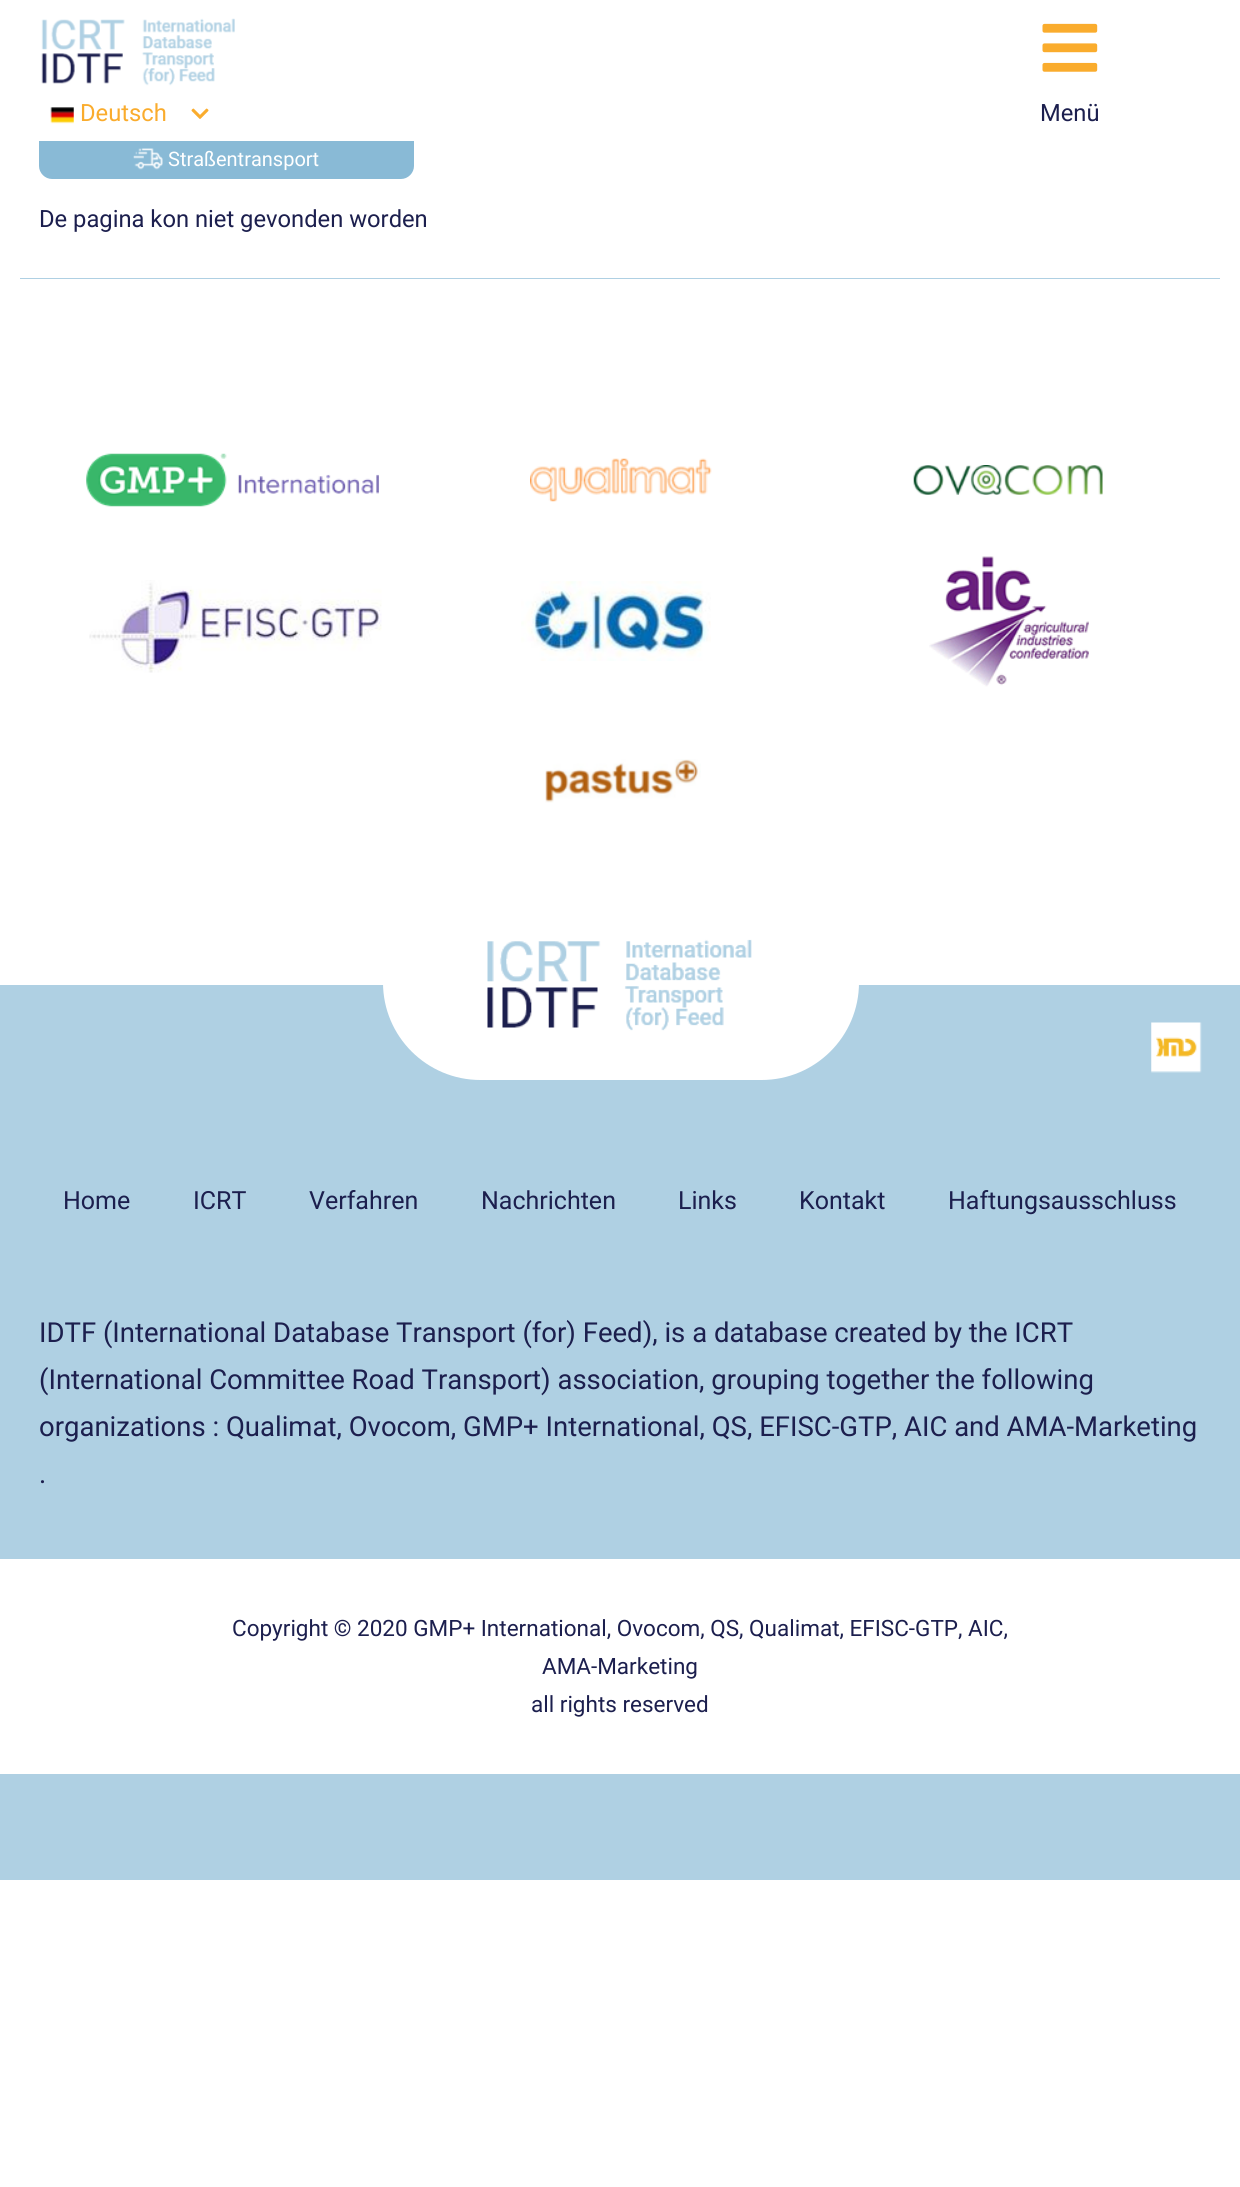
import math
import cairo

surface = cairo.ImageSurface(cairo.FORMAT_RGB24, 1240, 2187)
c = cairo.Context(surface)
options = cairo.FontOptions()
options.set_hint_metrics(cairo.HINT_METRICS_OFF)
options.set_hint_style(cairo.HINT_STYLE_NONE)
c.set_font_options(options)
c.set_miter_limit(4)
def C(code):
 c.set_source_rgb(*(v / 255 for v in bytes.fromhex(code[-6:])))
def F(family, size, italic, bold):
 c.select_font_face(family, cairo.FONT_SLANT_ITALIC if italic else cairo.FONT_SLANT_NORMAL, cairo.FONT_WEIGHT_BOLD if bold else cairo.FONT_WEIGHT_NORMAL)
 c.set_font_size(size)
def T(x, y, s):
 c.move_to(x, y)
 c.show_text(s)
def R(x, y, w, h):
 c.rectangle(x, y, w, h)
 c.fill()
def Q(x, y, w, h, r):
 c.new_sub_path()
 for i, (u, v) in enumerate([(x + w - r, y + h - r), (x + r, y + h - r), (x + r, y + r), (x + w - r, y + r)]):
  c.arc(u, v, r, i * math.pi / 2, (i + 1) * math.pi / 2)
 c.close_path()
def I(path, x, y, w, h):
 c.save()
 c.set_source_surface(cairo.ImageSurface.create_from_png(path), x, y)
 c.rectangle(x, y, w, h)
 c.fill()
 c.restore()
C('ffffff')
c.paint()
I('1.png',1042,23,56,49)
I('2.png',50,107,24,17)
F('Roboto',23.75,0,0)
C('faac2d')
T(80,121,'Deutsch')
I('3.png',191,108,18,11)
C('1c1f4e')
T(1040,121,'Menü')
I('4.png',41,18,194,68)
C('89bad6')
c.new_path()
c.move_to(39,141)
c.line_to(414,141)
c.line_to(414,166)
c.curve_to(414,173,408,179,401,179)
c.line_to(52,179)
c.curve_to(45,179,39,173,39,166)
c.close_path()
c.fill()
I('5.png',133,148,30,22)
F('Roboto',20,0,0)
C('ffffff')
T(168,166,'Straßentransport')
F('Roboto',23.75,0,0)
C('1c1f4e')
T(39,227,'De pagina kon niet gevonden worden')
C('afd0e3')
R(20,278,1200,1)
I('6.png',86,453,293,54)
I('7.png',530,458,182,44)
I('8.png',913,465,190,30)
I('9.png',89,580,293,93)
I('10.png',521,581,190,80)
I('11.png',929,556,160,131)
I('12.png',545,759,156,44)
R(0,985,1240,895)
C('ffffff')
Q(383,885,476,195,97.5)
c.fill()
I('13.png',487,939,265,92)
I('14.png',1151,1022,51,51)
F('Roboto',25,0,0)
C('1c1f4e')
T(63,1209,'Home')
T(193,1209,'ICRT')
T(309,1209,'Verfahren')
T(481,1209,'Nachrichten')
T(678,1209,'Links')
T(799,1209,'Kontakt')
T(948,1209,'Haftungsausschluss')
F('Roboto',27.5,0,0)
T(39,1342,'IDTF (International Database Transport (for) Feed), is a database created by the ICRT')
T(39,1389,'(International Committee Road Transport) association, grouping together the following')
T(39,1436,'organizations : Qualimat, Ovocom, GMP+ International, QS, EFISC-GTP, AIC and AMA-Marketing')
T(39,1483,'.')
C('ffffff')
R(0,1559,1240,215)
F('Roboto',22.5,0,0)
C('1c1f4e')
T(232,1636,'Copyright © 2020 GMP+ International, Ovocom, QS, Qualimat, EFISC-GTP, AIC,')
T(542,1674,'AMA-Marketing')
T(531,1712,'all rights reserved')
surface.write_to_png('o.png')
